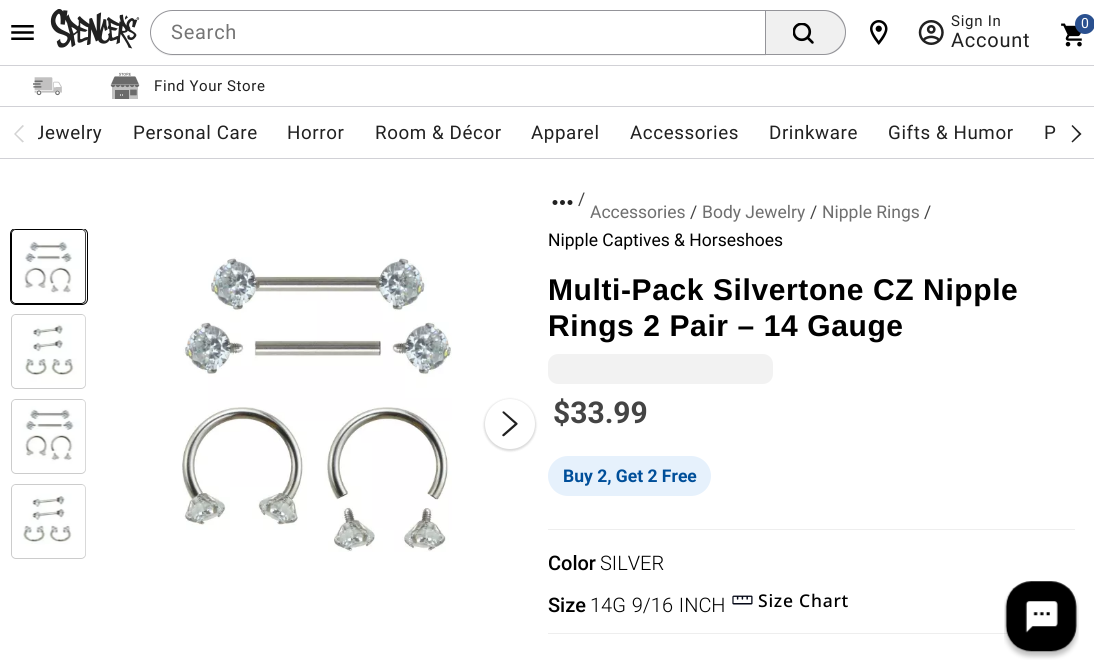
import math
import cairo

surface = cairo.ImageSurface(cairo.FORMAT_RGB24, 1094, 670)
c = cairo.Context(surface)
options = cairo.FontOptions()
options.set_hint_metrics(cairo.HINT_METRICS_OFF)
options.set_hint_style(cairo.HINT_STYLE_NONE)
c.set_font_options(options)
c.set_miter_limit(4)
def C(code):
 c.set_source_rgb(*(v / 255 for v in bytes.fromhex(code[-6:])))
def F(family, size, italic, bold):
 c.select_font_face(family, cairo.FONT_SLANT_ITALIC if italic else cairo.FONT_SLANT_NORMAL, cairo.FONT_WEIGHT_BOLD if bold else cairo.FONT_WEIGHT_NORMAL)
 c.set_font_size(size)
def T(x, y, s):
 c.move_to(x, y)
 c.show_text(s)
def L(x, y, s, letter, word):
 c.move_to(x, y)
 for ch in s:
  c.show_text(ch)
  c.rel_move_to(letter + word * (ch == ' '), 0)
def R(x, y, w, h):
 c.rectangle(x, y, w, h)
 c.fill()
def Q(x, y, w, h, r):
 c.new_sub_path()
 for i, (u, v) in enumerate([(x + w - r, y + h - r), (x + r, y + h - r), (x + r, y + r), (x + w - r, y + r)]):
  c.arc(u, v, r, i * math.pi / 2, (i + 1) * math.pi / 2)
 c.close_path()
def S(x, y, w, h, r, blur, alpha):
 c.push_group_with_content(cairo.CONTENT_ALPHA)
 c.set_operator(cairo.OPERATOR_SOURCE)
 for i in range(15, -16, -2):
  e = blur * i / 6
  if min(w, h) + 2 * e > 0:
   c.set_source_rgba(0, 0, 0, alpha * math.erfc((i - 1) / 8.5) / 2)
   Q(x - e, y - e, w + 2 * e, h + 2 * e, max(0, min(r + e + blur * .6, min(w, h) / 2 + e)))
   c.fill()
 c.mask(c.pop_group())
def I(path, x, y, w, h):
 c.save()
 c.set_source_surface(cairo.ImageSurface.create_from_png(path), x, y)
 c.rectangle(x, y, w, h)
 c.fill()
 c.restore()
C('ffffff')
c.paint()
C('d1d1d6')
R(0,65,1094,1)
I('1.png',11,25,23,15)
I('2.png',50,9,90,40)
C('f2f2f2')
c.new_path()
c.move_to(150,33)
c.line_to(150,34)
c.curve_to(150,46,160,56,172,56)
c.line_to(766,56)
c.line_to(766,55)
c.line_to(172,55)
c.curve_to(160,55,150,45,150,33)
c.close_path()
c.fill()
c.new_path()
c.move_to(172.5,10.5)
c.line_to(765.5,10.5)
c.line_to(765.5,54.5)
c.line_to(172.5,54.5)
c.curve_to(160.5,54.5,150.5,44.5,150.5,32.5)
c.curve_to(150.5,20.5,160.5,10.5,172.5,10.5)
c.close_path()
C('949499')
c.set_line_width(1)
c.stroke()
F('Roboto',20,0,0)
C('757575')
L(171,39,'Search',.75,0)
C('f0f0f0')
c.new_path()
c.move_to(766,10)
c.line_to(823.5,10)
c.curve_to(836,10,846,20,846,32.5)
c.curve_to(846,45,836,55,823.5,55)
c.line_to(766,55)
c.close_path()
c.fill()
I('3.png',793,23,21,21)
C('949499')
c.set_fill_rule(cairo.FILL_RULE_EVEN_ODD)
c.new_path()
c.move_to(766,10)
c.line_to(824,10)
c.curve_to(836,10,846,20,846,32)
c.curve_to(846,45,836,55,824,55)
c.line_to(766,55)
c.close_path()
c.move_to(766,11)
c.line_to(824,11)
c.curve_to(835,11,845,21,845,32)
c.curve_to(845,44,835,54,824,54)
c.line_to(766,54)
c.close_path()
c.fill()
I('4.png',870,20,18,25)
I('5.png',918,20,26,25)
F('Roboto',15,0,0)
C('212121')
L(951,26,'Sign In',.75,0)
F('Roboto',20,0,0)
L(951,47,'Account',.75,0)
I('6.png',1061,23,21,24)
C('2a508f')
c.arc(1085,24,10,0,2 * math.pi)
c.fill()
F('Roboto',14,0,0)
C('ffffff')
T(1081,28,'0')
C('d1d1d6')
R(0,106,1094,1)
I('7.png',33,77,29,19)
I('8.png',110,72,30,27)
F('Roboto',15,0,0)
C('212121')
L(154,91,'Find Your Store',.6,0)
C('d1d1d6')
R(0,158,1094,1)
F('Roboto',18.75,0,0)
C('212121')
L(34,139,'Jewelry',.6,0)
C('ffffff')
Q(0,113,38,40,4)
c.fill()
C('d3d3d3')
c.new_path()
c.move_to(24,141.5)
c.line_to(16,134)
c.line_to(24,126)
c.line_to(22.5,125)
c.line_to(14,134)
c.line_to(22.5,142.5)
c.close_path()
c.fill()
C('212121')
L(133,139,'Personal Care',.6,0)
L(287,139,'Horror',.6,0)
L(375,139,'Room & Décor',.6,0)
L(531,139,'Apparel',.6,0)
L(630,139,'Accessories',.6,0)
L(769,139,'Drinkware',.6,0)
L(888,139,'Gifts & Humor',.6,0)
L(1044,139,'P',.6,0)
c.new_path()
c.move_to(1071.5,141.5)
c.line_to(1079,134)
c.line_to(1071.5,126)
c.line_to(1072.5,125)
c.line_to(1081.5,134)
c.line_to(1072.5,142.5)
c.close_path()
c.fill()
Q(11.5,229.5,74,74,4.5)
C('000000')
c.stroke()
I('9.png',12,230,74,73)
c.save()
c.set_fill_rule(cairo.FILL_RULE_WINDING)
c.rectangle(10,229,78,330)
c.clip()
Q(10.5,228.5,77,76,5.5)
c.stroke()
c.restore()
Q(11.5,314.5,74,74,4.5)
C('cccccc')
c.stroke()
I('10.png',12,315,74,73)
Q(11.5,399.5,74,74,4.5)
c.stroke()
I('11.png',12,400,74,73)
Q(11.5,484.5,74,74,4.5)
c.stroke()
I('12.png',12,485,74,73)
I('13.png',182,257,270,295)
C('000000')
S(484,399,52,52,26,1,.15)
C('ffffff')
c.arc(510,424,25,0,2 * math.pi)
c.fill()
I('14.png',502,411,16,26)
I('15.png',552,200,21,5)
F('Roboto',17.5,0,0)
C('444444')
T(578,205,'/')
C('6f6f6f')
T(590,218,'Accessories')
C('444444')
T(690,218,'/')
C('6f6f6f')
T(702,218,'Body Jewelry')
C('444444')
T(810,218,'/')
C('6f6f6f')
T(822,218,'Nipple Rings')
C('444444')
T(924,218,'/')
C('000000')
T(548,246,'Nipple Captives & Horseshoes')
F('Liberation Sans',30,0,1)
L(548,300,'Multi-Pack Silvertone CZ Nipple',.6,0)
L(548,336,'Rings 2 Pair – 14 Gauge',.6,0)
C('f2f2f2')
Q(548,354,225,30,10)
c.fill()
F('Roboto',30,0,1)
C('444444')
T(553,423,'$33.99')
C('e6f1fc')
Q(548,456,163,40,20)
c.fill()
F('Roboto',17.5,0,1)
C('004f9a')
T(563,482,'Buy 2, Get 2 Free')
C('eeeeee')
R(548,529,527,1)
F('Roboto Medium',20,0,0)
C('000000')
T(548,570,'Color')
F('Roboto Light',20,0,0)
T(600,570,'SILVER')
F('Roboto Medium',20,0,0)
T(548,612,'Size')
F('Roboto Light',20,0,0)
L(590,612,'14G 9/16 INCH',0,1)
I('16.png',732,595,21,10)
F('Noto Sans Medium',17.5,0,0)
L(758,607,'Size Chart',.75,0)
C('eeeeee')
R(548,633,527,1)
I('17.png',1004,581,75,79)
surface.write_to_png('o.png')
